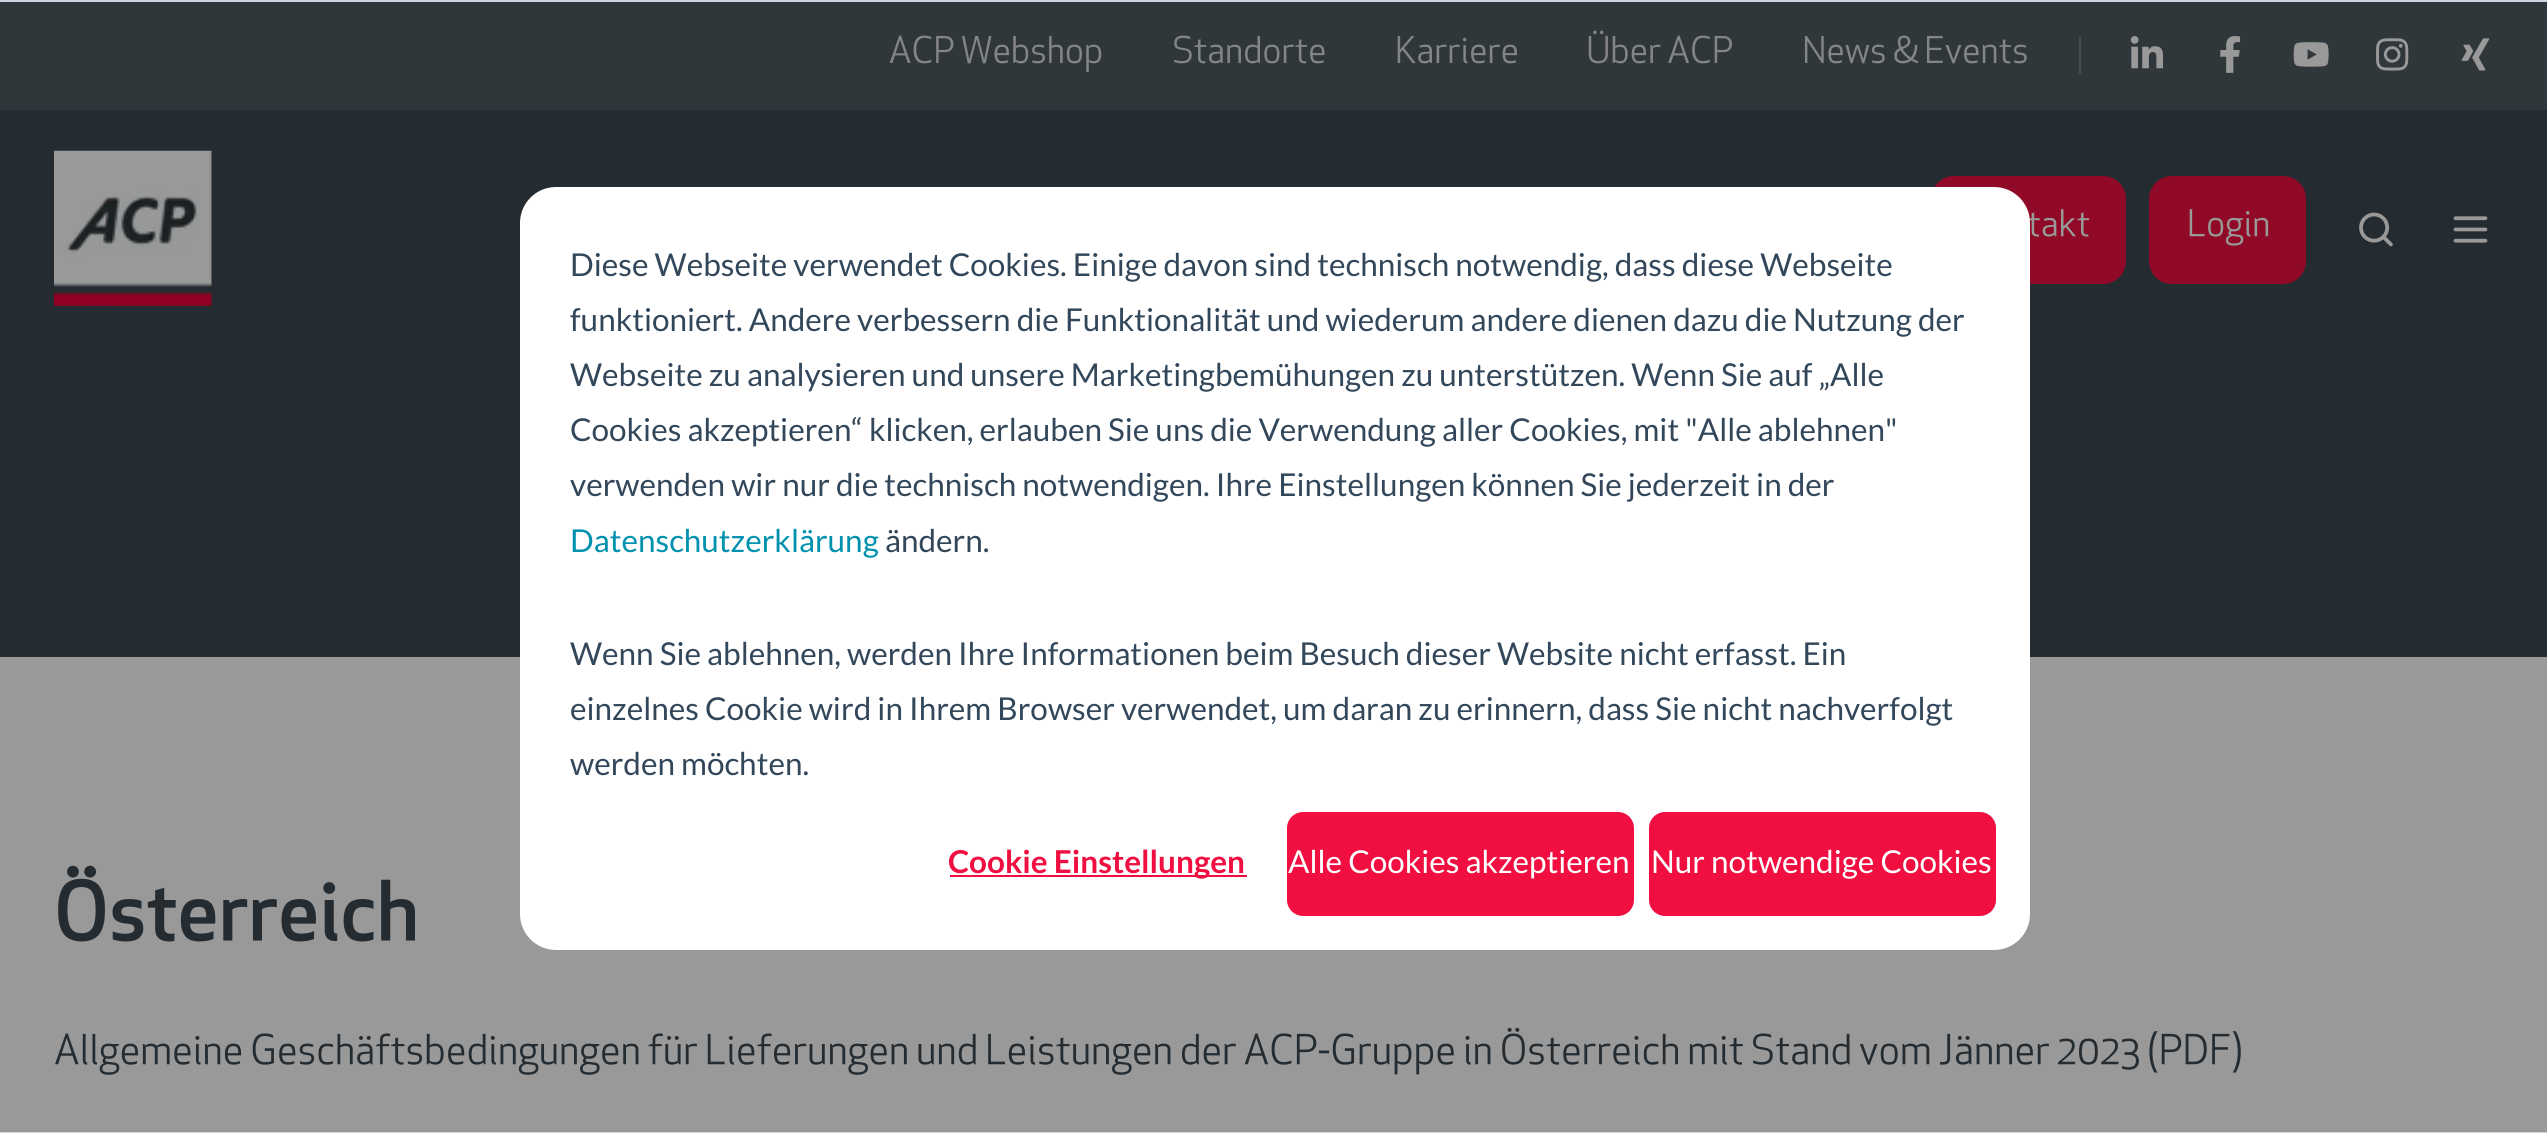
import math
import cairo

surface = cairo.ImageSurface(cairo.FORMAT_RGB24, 2547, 1133)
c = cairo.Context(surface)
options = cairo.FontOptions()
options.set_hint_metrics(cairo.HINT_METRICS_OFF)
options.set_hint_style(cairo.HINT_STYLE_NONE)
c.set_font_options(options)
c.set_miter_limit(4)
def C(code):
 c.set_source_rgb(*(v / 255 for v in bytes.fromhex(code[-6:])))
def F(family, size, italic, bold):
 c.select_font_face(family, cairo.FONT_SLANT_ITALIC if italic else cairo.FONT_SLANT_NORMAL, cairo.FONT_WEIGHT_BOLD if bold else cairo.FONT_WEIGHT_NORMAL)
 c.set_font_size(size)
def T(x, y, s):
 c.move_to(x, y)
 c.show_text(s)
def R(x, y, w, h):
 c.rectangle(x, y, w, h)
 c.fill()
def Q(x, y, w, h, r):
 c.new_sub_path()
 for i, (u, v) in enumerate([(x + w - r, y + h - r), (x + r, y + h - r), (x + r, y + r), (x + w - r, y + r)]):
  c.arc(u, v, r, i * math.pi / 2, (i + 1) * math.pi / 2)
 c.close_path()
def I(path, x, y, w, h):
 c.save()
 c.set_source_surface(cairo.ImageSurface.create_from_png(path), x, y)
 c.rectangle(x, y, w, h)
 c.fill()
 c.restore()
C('999999')
c.paint()
C('30373b')
R(0,2,2547,108)
I('1.png',889,35,213,37)
I('2.png',1174,35,151,29)
I('3.png',1397,35,120,29)
I('4.png',1588,30,144,34)
I('5.png',1804,35,223,29)
C('454b4e')
R(2079,36,2,38)
I('6.png',2130,36,34,33)
I('7.png',2220,36,21,37)
I('8.png',2293,42,36,25)
I('9.png',2376,38,33,33)
I('10.png',2461,38,29,33)
C('252c31')
R(0,110,2547,547)
I('11.png',54,150,158,156)
C('900926')
Q(1931,176,195,108,23)
c.fill()
I('12.png',2029,209,61,28)
Q(2149,176,157,108,23)
c.fill()
I('13.png',2189,209,80,37)
I('14.png',2359,212,34,35)
I('15.png',2453,216,35,27)
I('16.png',58,865,357,77)
I('17.png',55,1027,2186,48)
C('cbd6e2')
R(0,0,2547,2)
R(0,1132,2547,1)
C('ffffff')
Q(520,187,1510,763,36)
c.fill()
F('Lato',31.5,0,0)
C('33475b')
T(570,276,'Diese Webseite verwendet Cookies. Einige davon sind technisch notwendig, dass diese Webseite')
T(570,331,'funktioniert. Andere verbessern die Funktionalität und wiederum andere dienen dazu die Nutzung der')
T(570,386,'Webseite zu analysieren und unsere Marketingbemühungen zu unterstützen. Wenn Sie auf „Alle')
T(570,441,'Cookies akzeptieren“ klicken, erlauben Sie uns die Verwendung aller Cookies, mit "Alle ablehnen"')
T(570,496,'verwenden wir nur die technisch notwendigen. Ihre Einstellungen können Sie jederzeit in der')
C('0091ae')
T(570,552,'Datenschutzerklärung')
C('33475b')
T(885,552,'ändern.')
T(570,665,'Wenn Sie ablehnen, werden Ihre Informationen beim Besuch dieser Website nicht erfasst. Ein')
T(570,720,'einzelnes Cookie wird in Ihrem Browser verwendet, um daran zu erinnern, dass Sie nicht nachverfolgt')
T(570,775,'werden möchten.')
C('f00f40')
R(950,875,297,2)
F('Lato',31.5,0,1)
T(948,873,'Cookie Einstellungen')
Q(1288,813,345,102,15)
c.fill_preserve()
c.stroke()
F('Lato',31.5,0,0)
C('ffffff')
T(1288,873,'Alle Cookies akzeptieren')
C('f00f40')
Q(1650,813,345,102,15)
c.fill_preserve()
c.stroke()
C('ffffff')
T(1651,873,'Nur notwendige Cookies')
surface.write_to_png('o.png')
